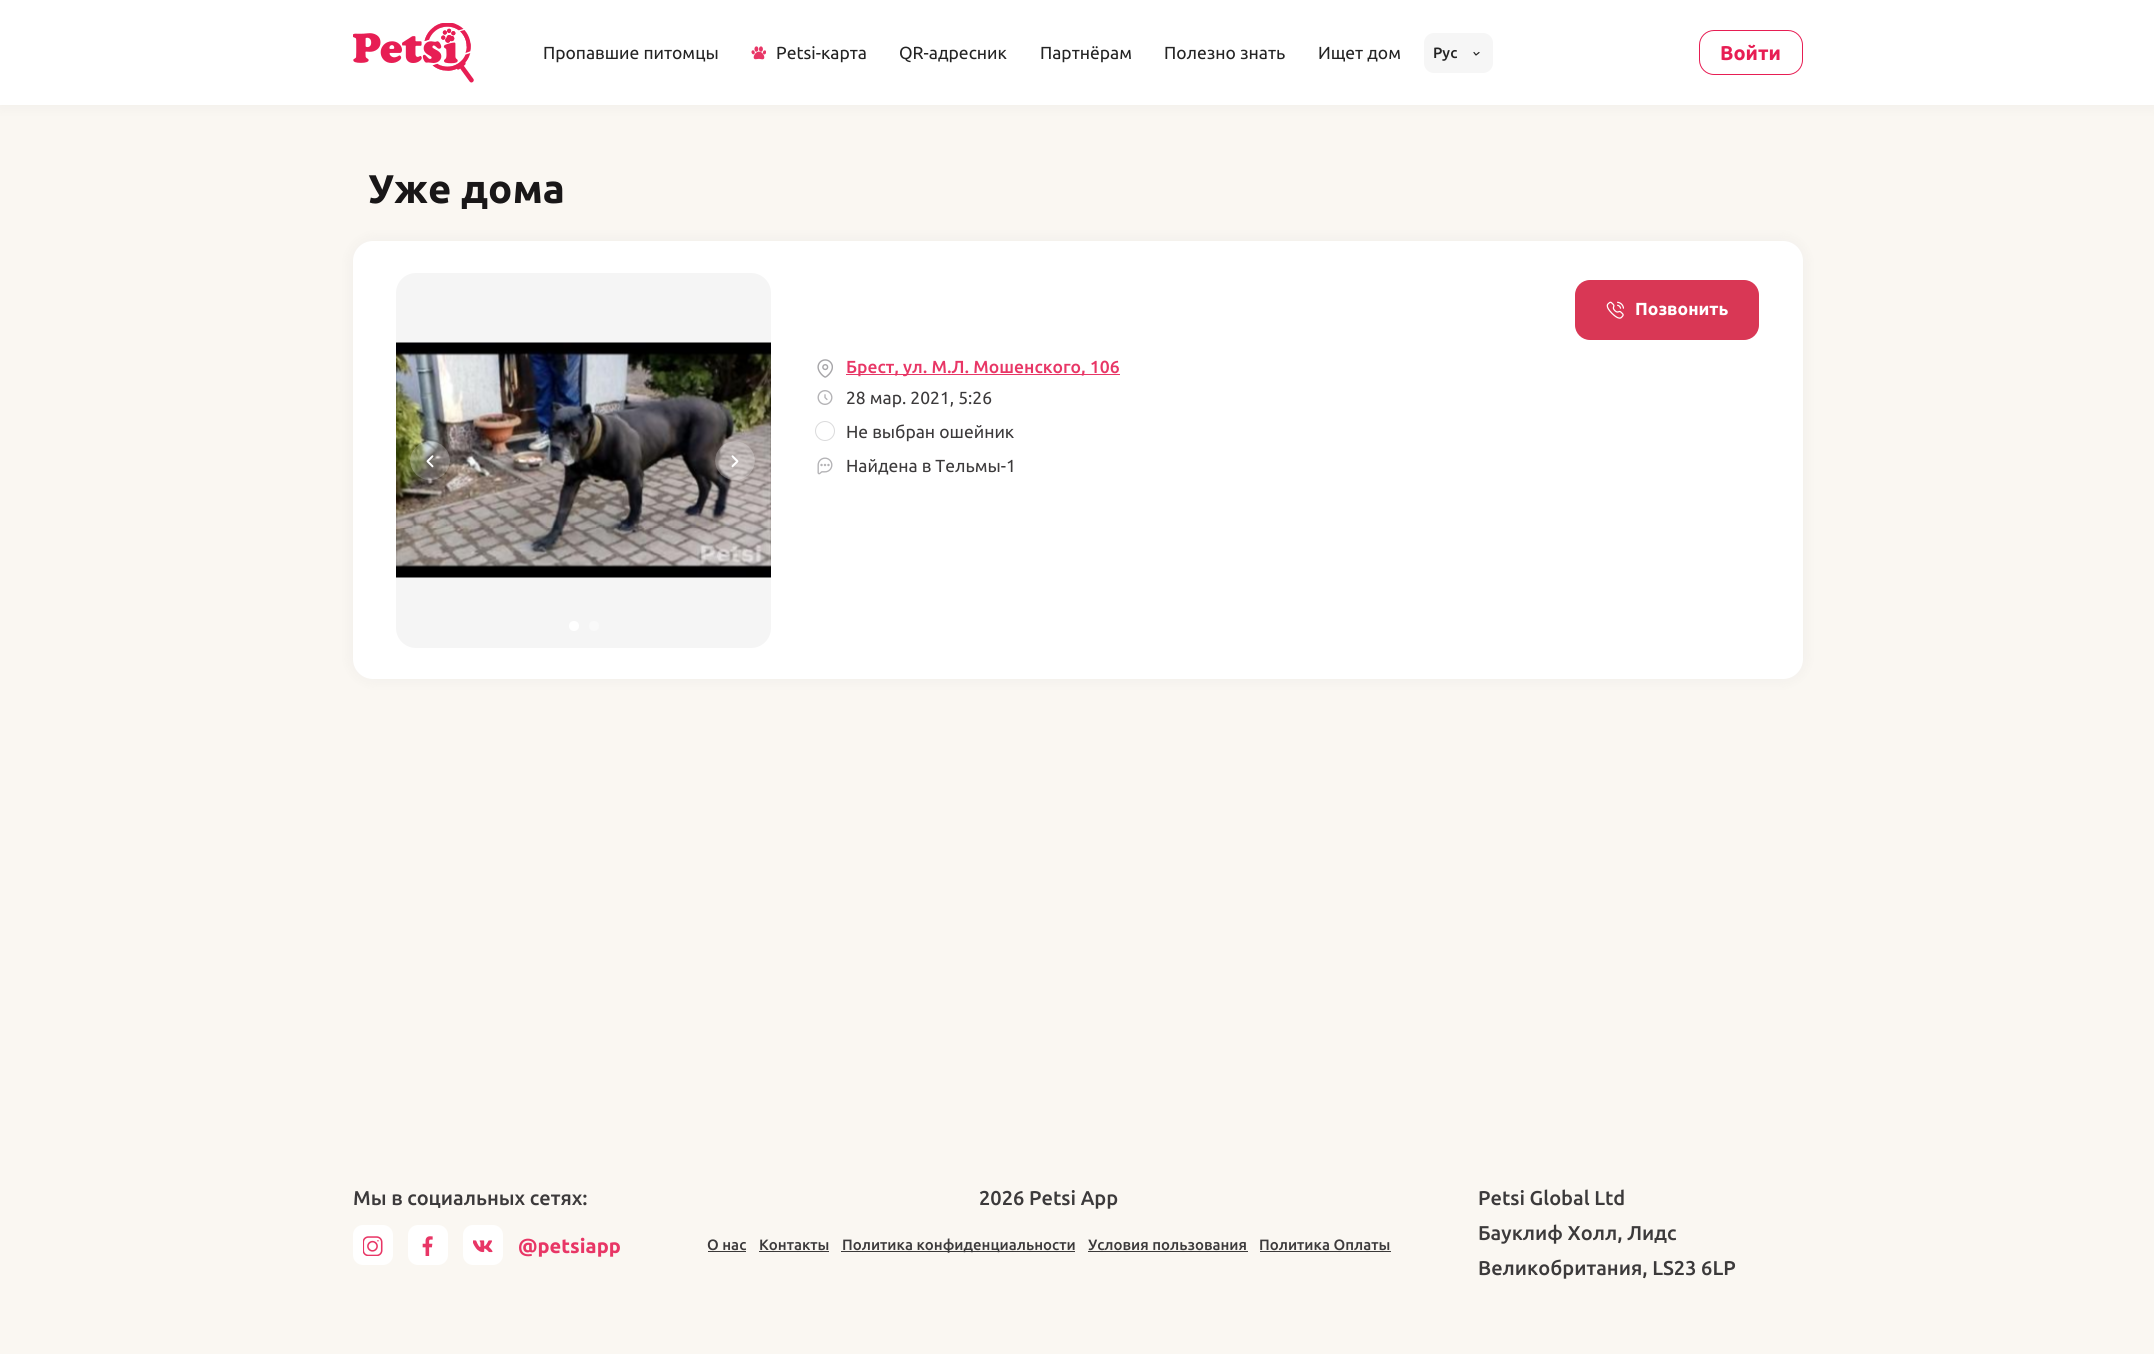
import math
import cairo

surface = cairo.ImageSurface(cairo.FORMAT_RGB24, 2154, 1354)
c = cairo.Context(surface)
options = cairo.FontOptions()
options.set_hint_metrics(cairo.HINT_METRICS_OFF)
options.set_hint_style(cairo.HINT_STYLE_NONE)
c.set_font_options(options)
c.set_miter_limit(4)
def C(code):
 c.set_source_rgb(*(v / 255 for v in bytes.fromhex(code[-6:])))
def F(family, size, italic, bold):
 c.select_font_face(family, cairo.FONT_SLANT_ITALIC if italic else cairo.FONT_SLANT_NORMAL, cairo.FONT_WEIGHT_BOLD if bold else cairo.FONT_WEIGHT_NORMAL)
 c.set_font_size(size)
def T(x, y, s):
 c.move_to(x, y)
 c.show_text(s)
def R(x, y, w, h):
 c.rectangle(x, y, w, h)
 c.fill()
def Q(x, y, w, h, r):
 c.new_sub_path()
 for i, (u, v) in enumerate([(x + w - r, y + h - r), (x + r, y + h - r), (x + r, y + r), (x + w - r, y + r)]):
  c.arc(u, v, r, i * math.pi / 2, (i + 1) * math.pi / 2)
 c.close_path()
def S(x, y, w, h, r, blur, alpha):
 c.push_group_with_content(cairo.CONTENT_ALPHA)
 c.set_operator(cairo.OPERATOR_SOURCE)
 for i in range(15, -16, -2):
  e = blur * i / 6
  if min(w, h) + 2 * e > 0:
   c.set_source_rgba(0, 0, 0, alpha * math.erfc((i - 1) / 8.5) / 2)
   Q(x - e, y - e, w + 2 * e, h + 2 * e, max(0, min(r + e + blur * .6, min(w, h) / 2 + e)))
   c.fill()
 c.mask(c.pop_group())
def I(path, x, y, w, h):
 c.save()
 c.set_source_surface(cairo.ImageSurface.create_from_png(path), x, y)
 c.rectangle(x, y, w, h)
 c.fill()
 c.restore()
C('faf7f2')
c.paint()
C('161a22')
S(0,0,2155,105,0,7.5,.05)
C('ffffff')
R(0,0,2154,105)
I('1.png',353,23,121,60)
F('Ubuntu',17.5,0,0)
C('242424')
T(543,59,'Пропавшие питомцы')
I('2.png',751,46,15,14)
T(776,59,'Petsi-карта')
T(899,59,'QR-адресник')
T(1040,59,'Партнёрам')
T(1164,59,'Полезно знать')
T(1318,59,'Ищет дом')
C('f6f6f6')
Q(1424,33,69,40,10)
c.fill()
F('Ubuntu Medium',15,0,0)
C('242424')
T(1433,58,'Рус')
c.new_path()
c.move_to(1474,52.5)
c.line_to(1476,55)
c.line_to(1479,52.5)
c.set_line_width(1.2)
c.set_line_cap(cairo.LINE_CAP_ROUND)
c.set_line_join(cairo.LINE_JOIN_ROUND)
c.stroke()
Q(1699.5,30.5,103,44,14.5)
C('e71e54')
c.set_line_width(1)
c.set_line_cap(cairo.LINE_CAP_BUTT)
c.set_line_join(cairo.LINE_JOIN_MITER)
c.stroke()
F('Ubuntu',20,0,1)
T(1720,60,'Войти')
F('Ubuntu',40,0,1)
C('191718')
T(368,203,'Уже дома')
C('161a22')
S(353,241,1450,438,20,7.5,.05)
C('ffffff')
Q(353,241,1450,438,20)
c.fill()
C('f5f5f5')
Q(396,273,375,375,20)
c.fill()
I('3.png',396,342,375,236)
I('4.png',410,441,40,39)
I('5.png',715,441,40,39)
C('ffffff')
c.arc(574,626,5,0,2 * math.pi)
c.fill()
C('f9f9f9')
c.arc(594,626,5,0,2 * math.pi)
c.fill()
C('d93755')
Q(1575,280,184,60,15)
c.fill()
I('6.png',1606,301,18,18)
F('Ubuntu',17.5,0,1)
C('ffffff')
T(1635,315,'Позвонить')
I('7.png',817,359,16,19)
C('e83666')
R(846,374,274,1)
F('Ubuntu Medium',17.5,0,0)
T(846,373,'Брест, ул. М.Л. Мошенского, 106')
I('8.png',817,390,16,15)
F('Ubuntu',17.5,0,0)
C('3c3a3b')
T(846,404,'28 мар. 2021, 5:26')
c.new_path()
c.arc(825,431,9.5,0,2 * math.pi)
C('dadadb')
c.stroke()
C('3c3a3b')
T(846,438,'Не выбран ошейник')
I('9.png',817,457,16,18)
T(846,472,'Найдена в Тельмы-1')
F('Ubuntu Medium',20,0,0)
T(353,1205,'Мы в социальных сетях:')
C('ffffff')
Q(353,1225,40,40,10)
c.fill()
I('10.png',363,1236,20,20)
Q(408,1225,40,40,10)
c.fill()
I('11.png',422,1236,11,20)
Q(463,1225,40,40,10)
c.fill()
I('12.png',473,1240,20,13)
F('Ubuntu',20,0,1)
C('e83666')
T(518,1253,'@petsiapp')
F('Ubuntu Medium',20,0,0)
C('3c3a3b')
T(979,1205,'2026 Petsi App')
F('Ubuntu Medium',15,0,0)
T(707,1250,'О нас')
C('3b3939')
R(708,1251,38,1)
C('3c3a3b')
T(759,1250,'Контакты')
C('3b3939')
R(759,1251,70,1)
R(841,1251,234,1)
C('3c3a3b')
T(842,1250,'Политика конфиденциальности')
T(1088,1250,'Условия пользования')
C('3b3939')
R(1088,1251,160,1)
C('3c3a3b')
T(1259,1250,'Политика Оплаты')
C('3b3939')
R(1260,1251,131,1)
F('Ubuntu Medium',20,0,0)
C('3c3a3b')
T(1478,1205,'Petsi Global Ltd')
T(1478,1240,'Бауклиф Холл, Лидс')
T(1478,1275,'Великобритания, LS23 6LP')
surface.write_to_png('o.png')
